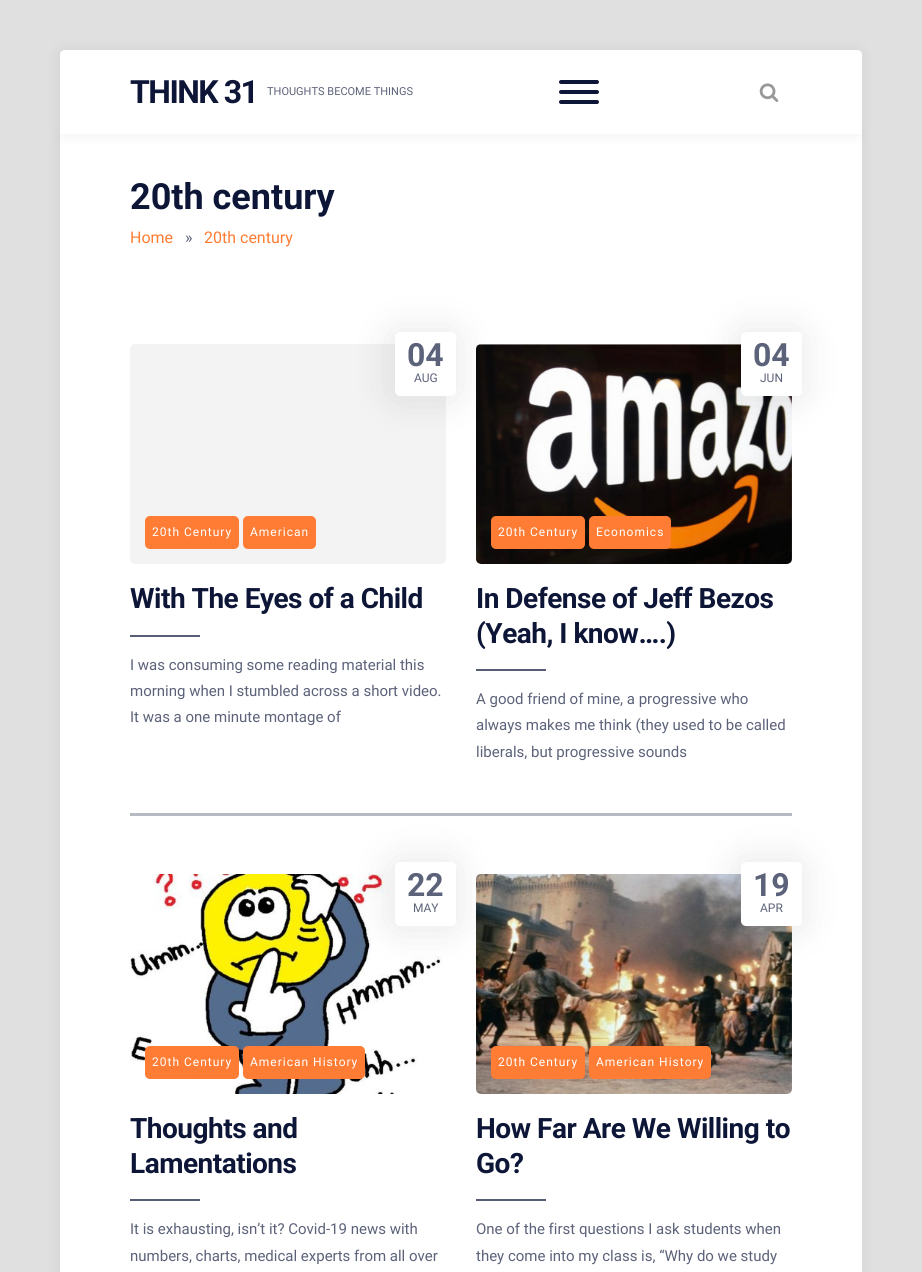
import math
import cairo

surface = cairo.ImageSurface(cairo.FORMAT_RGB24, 922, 1272)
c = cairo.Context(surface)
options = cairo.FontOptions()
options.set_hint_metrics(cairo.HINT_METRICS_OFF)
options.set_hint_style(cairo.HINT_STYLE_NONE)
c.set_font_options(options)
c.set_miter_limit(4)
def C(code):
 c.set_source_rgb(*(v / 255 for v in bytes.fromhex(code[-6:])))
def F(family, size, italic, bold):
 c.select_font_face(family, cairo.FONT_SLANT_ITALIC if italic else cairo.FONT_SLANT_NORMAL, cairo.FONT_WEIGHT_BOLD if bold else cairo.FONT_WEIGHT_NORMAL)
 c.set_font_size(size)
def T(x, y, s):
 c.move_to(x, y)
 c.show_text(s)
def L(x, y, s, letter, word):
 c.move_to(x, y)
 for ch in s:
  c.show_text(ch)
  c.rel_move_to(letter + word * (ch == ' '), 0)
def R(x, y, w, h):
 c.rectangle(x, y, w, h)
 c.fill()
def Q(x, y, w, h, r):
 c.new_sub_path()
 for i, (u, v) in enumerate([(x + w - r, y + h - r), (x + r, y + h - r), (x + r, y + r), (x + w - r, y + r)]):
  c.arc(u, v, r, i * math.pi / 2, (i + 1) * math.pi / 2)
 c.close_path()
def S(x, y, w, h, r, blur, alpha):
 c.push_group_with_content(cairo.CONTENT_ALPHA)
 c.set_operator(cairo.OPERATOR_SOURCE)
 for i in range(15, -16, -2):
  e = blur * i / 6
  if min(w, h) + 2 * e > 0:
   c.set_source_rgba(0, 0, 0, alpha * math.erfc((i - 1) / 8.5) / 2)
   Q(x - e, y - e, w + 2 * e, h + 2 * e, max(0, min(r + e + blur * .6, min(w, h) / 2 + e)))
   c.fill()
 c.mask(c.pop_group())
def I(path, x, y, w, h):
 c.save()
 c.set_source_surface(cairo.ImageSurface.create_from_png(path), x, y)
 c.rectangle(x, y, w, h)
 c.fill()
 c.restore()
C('e0e0e0')
c.paint()
C('000000')
S(59,134,802,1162,0,8,.07)
C('ffffff')
R(60,134,802,1138)
C('000000')
S(59,50,802,84,5,8,.07)
C('ffffff')
c.new_path()
c.move_to(65,50)
c.line_to(857,50)
c.curve_to(860,50,862,52,862,55)
c.line_to(862,134)
c.line_to(60,134)
c.line_to(60,55)
c.curve_to(60,52,62,50,65,50)
c.close_path()
c.fill()
F('Roboto',32,0,1)
C('0e1638')
L(130,103,'THINK 31',-1.5,0)
F('Roboto',11,0,0)
C('5c6279')
T(267,95,'THOUGHTS BECOME THINGS')
C('0e1638')
Q(559,80,40,4,2)
c.fill()
Q(559,90,40,4,2)
c.fill()
Q(559,100,40,4,2)
c.fill()
I('1.png',759,83,20,19)
F('Roboto',36,0,1)
T(130,209,'20th century')
F('Roboto',16,0,0)
C('ff7c34')
T(130,243,'Home')
C('5c6279')
T(185,243,'»')
C('ff7c34')
T(204,243,'20th century')
I('2.png',130,344,316,220)
C('000000')
S(391,331,65,68,7,19,.1)
C('ffffff')
Q(395,332,61,64,5)
c.fill()
F('Roboto',32,0,1)
C('5c6279')
T(407,366,'04')
F('Roboto',12,0,0)
T(414,382,'AUG')
C('ff7c34')
Q(145,516,94,33,5)
c.fill()
C('ffffff')
L(152,536,'20th Century',1,0)
C('ff7c34')
Q(243,516,73,33,5)
c.fill()
C('ffffff')
L(250,536,'American',1,0)
F('Roboto',28,0,1)
C('0e1638')
L(130,608,'With The Eyes of a Child',-.5,0)
C('565c74')
R(130,635,70,2)
F('Roboto',15,0,0)
C('5c6279')
T(130,670,'I was consuming some reading material this')
T(130,696,'morning when I stumbled across a short video.')
T(130,722,'It was a one minute montage of')
I('3.png',476,344,316,220)
C('000000')
S(737,331,65,68,7,19,.1)
C('ffffff')
Q(741,332,61,64,5)
c.fill()
F('Roboto',32,0,1)
C('5c6279')
T(753,366,'04')
F('Roboto',12,0,0)
T(760,382,'JUN')
C('ff7c34')
Q(491,516,94,33,5)
c.fill()
C('ffffff')
L(498,536,'20th Century',1,0)
C('ff7c34')
Q(589,516,82,33,5)
c.fill()
C('ffffff')
L(596,536,'Economics',1,0)
F('Roboto',28,0,1)
C('0e1638')
L(476,608,'In Defense of Jeff Bezos',-.5,0)
L(476,643,'(Yeah, I know….)',-.5,0)
C('565c74')
R(476,669,70,2)
F('Roboto',15,0,0)
C('5c6279')
T(476,704,'A good friend of mine, a progressive who')
T(476,730,'always makes me think (they used to be called')
T(476,757,'liberals, but progressive sounds')
C('b7b9c3')
R(130,813,662,3)
I('4.png',130,874,316,220)
C('000000')
S(391,861,65,68,7,19,.1)
C('ffffff')
Q(395,862,61,64,5)
c.fill()
F('Roboto',32,0,1)
C('5c6279')
T(407,896,'22')
F('Roboto',12,0,0)
T(413,912,'MAY')
C('ff7c34')
Q(145,1046,94,33,5)
c.fill()
C('ffffff')
L(152,1066,'20th Century',1,0)
C('ff7c34')
Q(243,1046,122,33,5)
c.fill()
C('ffffff')
L(250,1066,'American History',1,0)
F('Roboto',28,0,1)
C('0e1638')
L(130,1138,'Thoughts and',-.5,0)
L(130,1173,'Lamentations',-.5,0)
C('565c74')
R(130,1199,70,2)
F('Roboto',15,0,0)
C('5c6279')
T(130,1234,'It is exhausting, isn’t it? Covid-19 news with')
T(130,1261,'numbers, charts, medical experts from all over')
I('5.png',476,874,316,220)
C('000000')
S(737,861,65,68,7,19,.1)
C('ffffff')
Q(741,862,61,64,5)
c.fill()
F('Roboto',32,0,1)
C('5c6279')
T(753,896,'19')
F('Roboto',12,0,0)
T(760,912,'APR')
C('ff7c34')
Q(491,1046,94,33,5)
c.fill()
C('ffffff')
L(498,1066,'20th Century',1,0)
C('ff7c34')
Q(589,1046,122,33,5)
c.fill()
C('ffffff')
L(596,1066,'American History',1,0)
F('Roboto',28,0,1)
C('0e1638')
L(476,1138,'How Far Are We Willing to',-.5,0)
L(476,1173,'Go?',-.5,0)
C('565c74')
R(476,1199,70,2)
F('Roboto',15,0,0)
C('5c6279')
T(476,1234,'One of the first questions I ask students when')
T(476,1261,'they come into my class is, “Why do we study')
surface.write_to_png('o.png')
